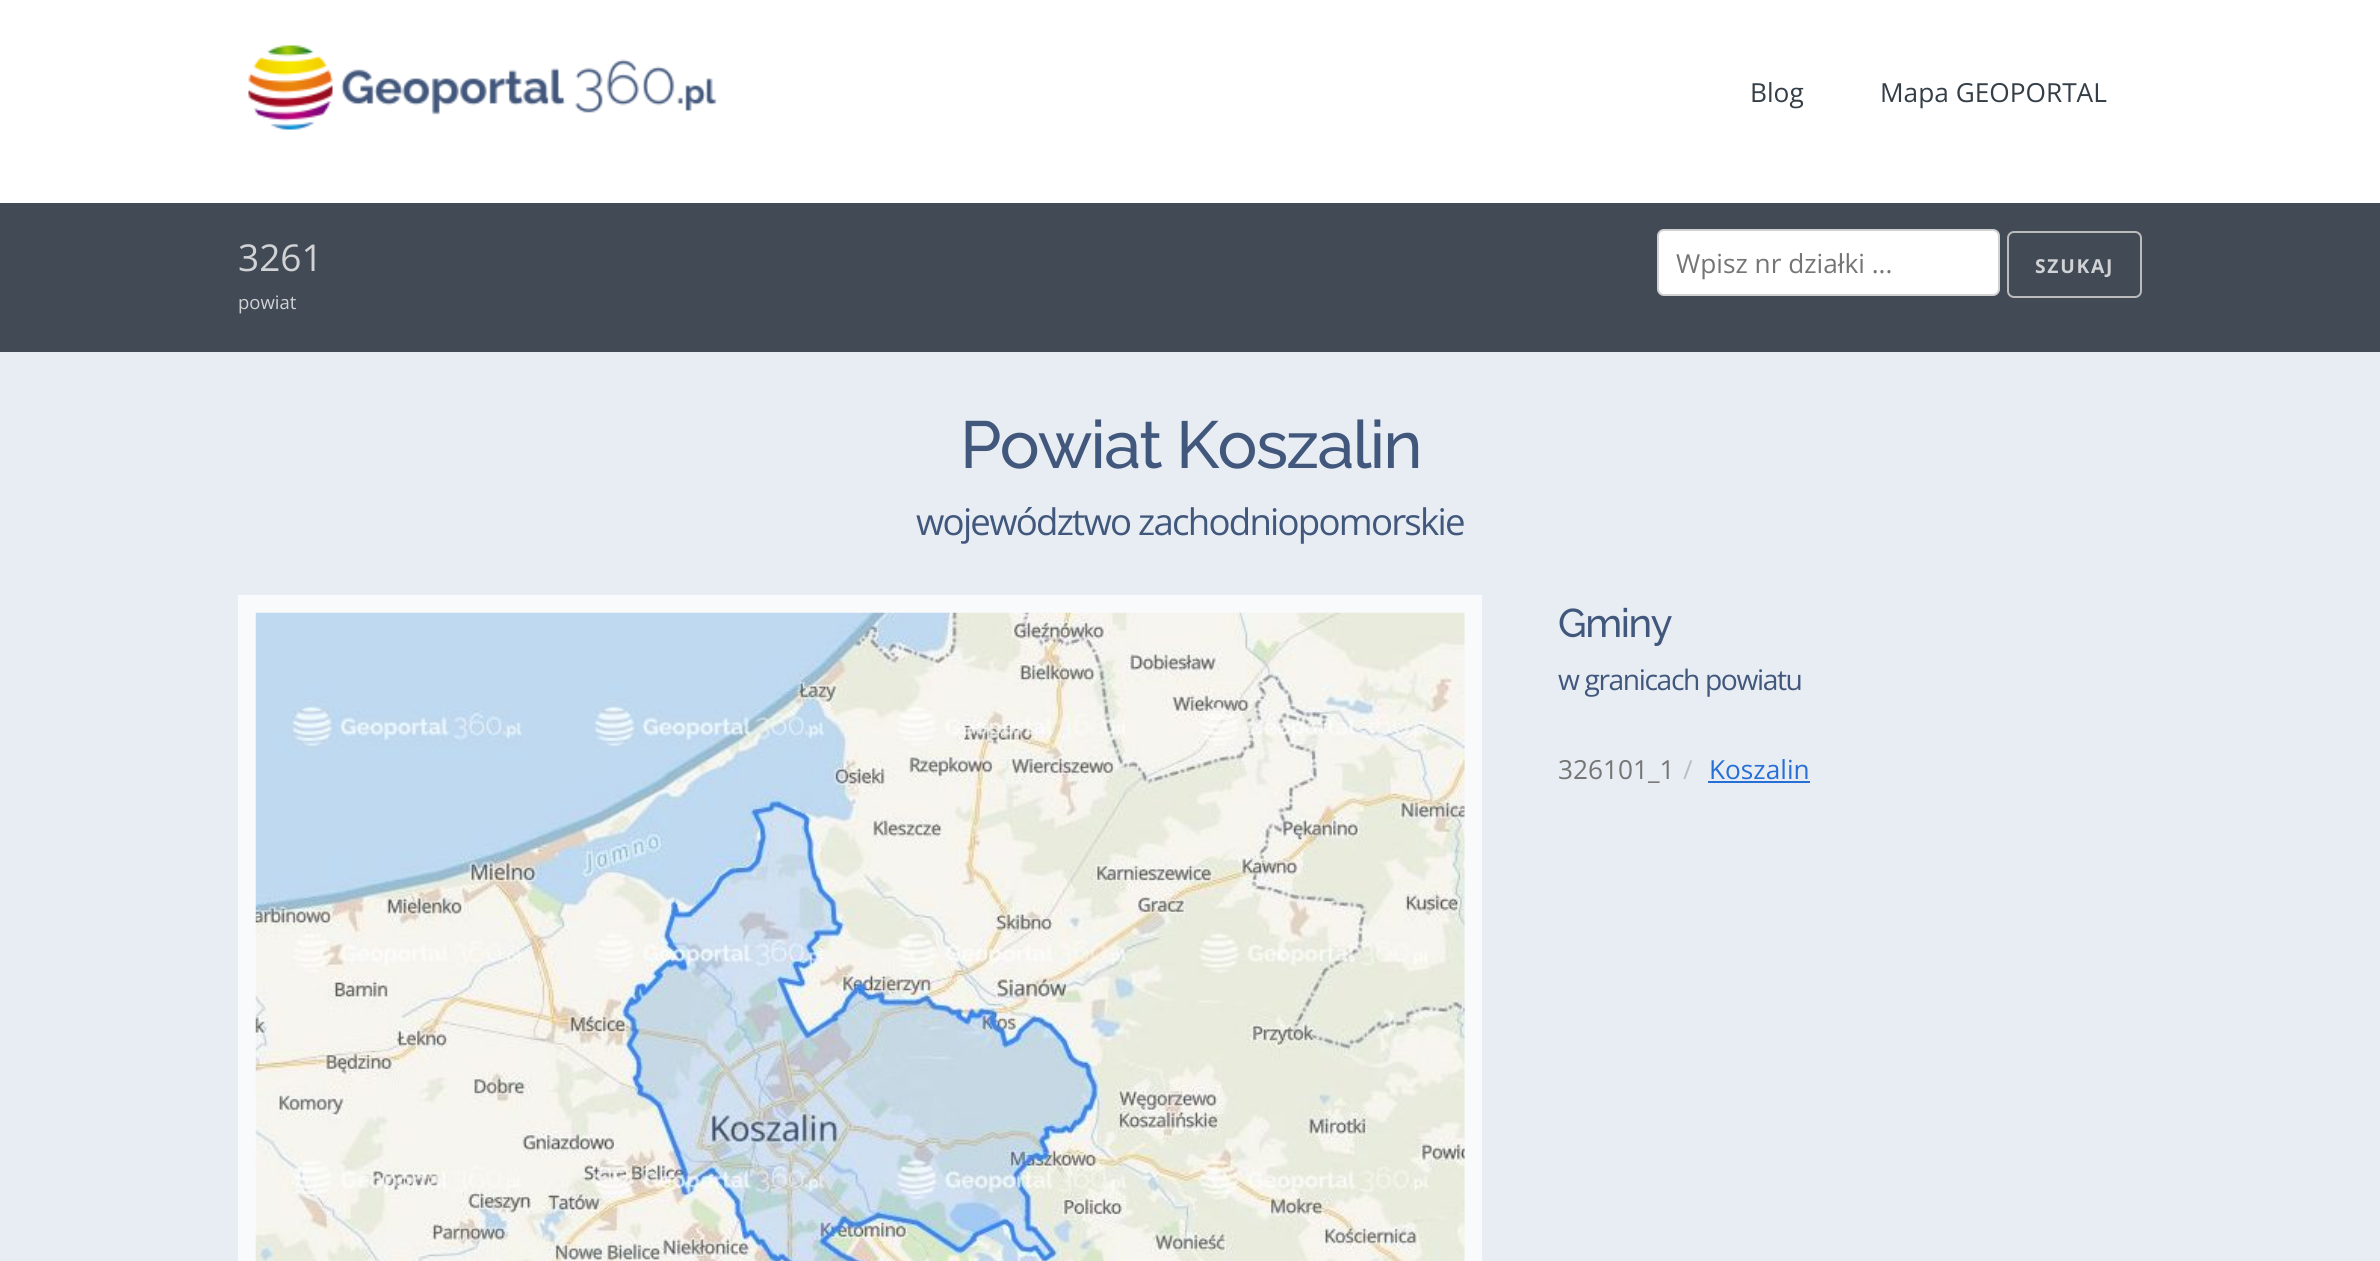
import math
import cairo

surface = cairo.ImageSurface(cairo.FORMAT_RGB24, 2380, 1261)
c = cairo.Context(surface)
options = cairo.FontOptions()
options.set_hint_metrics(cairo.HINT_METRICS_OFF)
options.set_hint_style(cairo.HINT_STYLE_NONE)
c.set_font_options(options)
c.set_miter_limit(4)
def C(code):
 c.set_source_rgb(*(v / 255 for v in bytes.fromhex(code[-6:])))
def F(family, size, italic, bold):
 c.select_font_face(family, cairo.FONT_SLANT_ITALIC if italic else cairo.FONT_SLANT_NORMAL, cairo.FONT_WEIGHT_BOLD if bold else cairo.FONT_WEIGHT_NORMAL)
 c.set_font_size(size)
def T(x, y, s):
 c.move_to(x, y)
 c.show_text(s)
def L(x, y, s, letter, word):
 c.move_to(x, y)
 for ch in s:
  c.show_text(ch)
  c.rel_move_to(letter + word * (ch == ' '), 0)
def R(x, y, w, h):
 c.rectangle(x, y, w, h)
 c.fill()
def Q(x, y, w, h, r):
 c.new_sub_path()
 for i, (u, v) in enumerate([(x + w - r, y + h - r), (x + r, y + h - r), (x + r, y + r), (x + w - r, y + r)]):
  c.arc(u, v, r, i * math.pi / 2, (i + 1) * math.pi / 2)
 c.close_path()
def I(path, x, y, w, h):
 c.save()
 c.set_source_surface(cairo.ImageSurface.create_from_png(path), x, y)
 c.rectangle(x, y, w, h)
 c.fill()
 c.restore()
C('e8edf3')
c.paint()
C('ffffff')
R(0,0,2380,203)
I('1.png',248,45,469,85)
F('Open Sans',26.25,0,0)
C('343e47')
T(1750,102,'Blog')
T(1880,102,'Mapa GEOPORTAL')
C('424a55')
R(0,203,2380,149)
F('Open Sans',37,0,0)
C('d0d2d5')
T(238,271,'3261')
F('Open Sans',18.5,0,0)
T(238,309,'powiat')
C('ffffff')
Q(1658,230,341,65,6)
c.fill_preserve()
C('d1d1d1')
c.stroke()
F('Open Sans',26.25,0,0)
C('757575')
T(1676,273,'Wpisz nr działki ...')
Q(2008,232,133,65,6)
C('bbbbbb')
c.stroke()
F('Open Sans',19.25,0,1)
C('d0d2d5')
L(2035,273,'SZUKAJ',1.75,0)
F('Raleway Medium',66.5,0,0)
C('41577b')
L(960,468,'Powiat Koszalin',-1.75,0)
F('Open Sans',36.6,0,0)
L(916,535,'województwo zachodniopomorskie',-1.75,0)
c.rectangle(247,604,1226,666)
C('f8fafb')
c.set_line_width(18)
c.stroke()
I('2.png',255,612,1210,649)
F('Raleway Medium',40,0,0)
C('41577b')
L(1558,637,'Gminy',-1.4,0)
F('Open Sans',28.25,0,0)
L(1558,690,'w granicach powiatu',-1.4,0)
F('Open Sans',26.25,0,0)
C('757575')
T(1558,779,'326101_1')
C('bbbec1')
T(1683,779,'/')
C('276fd4')
T(1709,779,'Koszalin')
R(1708,781,102,2)
surface.write_to_png('o.png')
